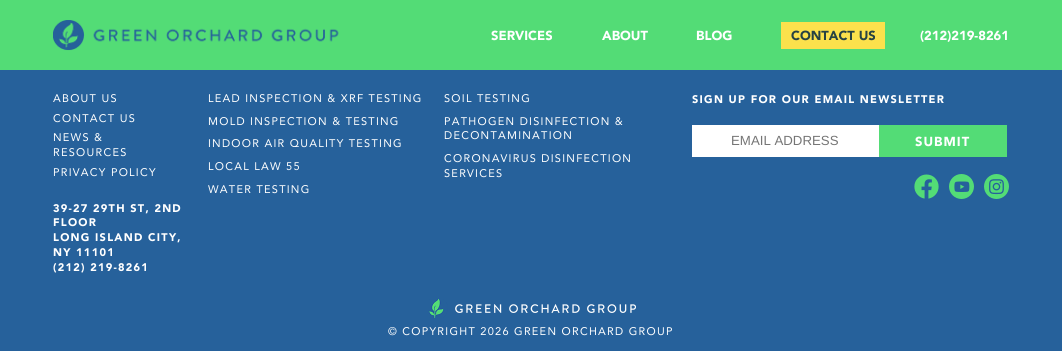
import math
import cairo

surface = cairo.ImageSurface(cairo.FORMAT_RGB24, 1062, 351)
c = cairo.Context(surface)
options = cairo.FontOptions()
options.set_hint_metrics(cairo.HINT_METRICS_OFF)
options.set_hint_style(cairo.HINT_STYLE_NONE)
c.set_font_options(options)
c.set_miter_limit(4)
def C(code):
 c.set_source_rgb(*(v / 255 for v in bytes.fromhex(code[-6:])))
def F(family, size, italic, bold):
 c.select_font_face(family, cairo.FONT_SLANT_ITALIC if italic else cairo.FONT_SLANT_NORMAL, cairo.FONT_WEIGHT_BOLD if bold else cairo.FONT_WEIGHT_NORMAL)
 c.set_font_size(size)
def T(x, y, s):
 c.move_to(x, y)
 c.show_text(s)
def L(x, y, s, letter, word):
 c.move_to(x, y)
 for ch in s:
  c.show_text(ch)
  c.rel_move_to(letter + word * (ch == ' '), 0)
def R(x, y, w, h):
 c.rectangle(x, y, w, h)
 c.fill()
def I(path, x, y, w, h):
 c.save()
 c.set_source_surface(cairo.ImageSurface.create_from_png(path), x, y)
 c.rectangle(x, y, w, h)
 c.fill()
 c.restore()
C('26619b')
c.paint()
C('53dc76')
R(0,0,1062,70)
I('1.png',53,20,286,31)
F('Avenir Black',13,0,0)
C('ffffff')
T(491,40,'SERVICES')
T(602,40,'ABOUT')
T(696,40,'BLOG')
C('fbe14c')
R(781,22,104,27)
C('264243')
T(791,40,'CONTACT US')
C('ffffff')
T(920,40,'(212)219-8261')
F('Avenir',11,0,0)
L(53,102,'ABOUT US',1.25,0)
L(53,122,'CONTACT US',1.25,0)
L(53,141,'NEWS &',1.25,0)
L(53,156,'RESOURCES',1.25,0)
L(53,176,'PRIVACY POLICY',1.25,0)
F('Avenir Black',11,0,0)
L(53,212,'39-27 29TH ST, 2ND',1.25,0)
L(53,226,'FLOOR',1.25,0)
L(53,241,'LONG ISLAND CITY,',1.25,0)
L(53,256,'NY 11101',1.25,0)
L(53,271,'(212) 219-8261',1.25,0)
F('Avenir',11,0,0)
L(208,102,'LEAD INSPECTION & XRF TESTING',1.25,0)
L(444,102,'SOIL TESTING',1.25,0)
L(208,125,'MOLD INSPECTION & TESTING',1.25,0)
L(444,125,'PATHOGEN DISINFECTION &',1.25,0)
L(444,139,'DECONTAMINATION',1.25,0)
L(208,147,'INDOOR AIR QUALITY TESTING',1.25,0)
L(208,170,'LOCAL LAW 55',1.25,0)
L(444,162,'CORONAVIRUS DISINFECTION',1.25,0)
L(444,177,'SERVICES',1.25,0)
L(208,193,'WATER TESTING',1.25,0)
F('Avenir Black',11,0,0)
L(692,103,'SIGN UP FOR OUR EMAIL NEWSLETTER',1.25,0)
R(692,125,187,32)
F('Liberation Sans',13.25,0,0)
C('757575')
T(731,145,'EMAIL ADDRESS')
C('53dc76')
R(879,125,128,32)
F('Avenir Black',13,0,0)
C('ffffff')
L(915,146,'SUBMIT',1,0)
I('2.png',914,174,25,25)
C('53dc76')
c.arc(961.5,186.5,12.5,0,2 * math.pi)
c.fill()
I('3.png',954,181,16,11)
c.arc(996.5,186.5,12.5,0,2 * math.pi)
c.fill()
I('4.png',989,179,15,16)
I('5.png',429,299,207,19)
F('Avenir',11,0,0)
C('ffffff')
L(388,335,'© COPYRIGHT 2026 GREEN ORCHARD GROUP',1.25,0)
surface.write_to_png('o.png')
